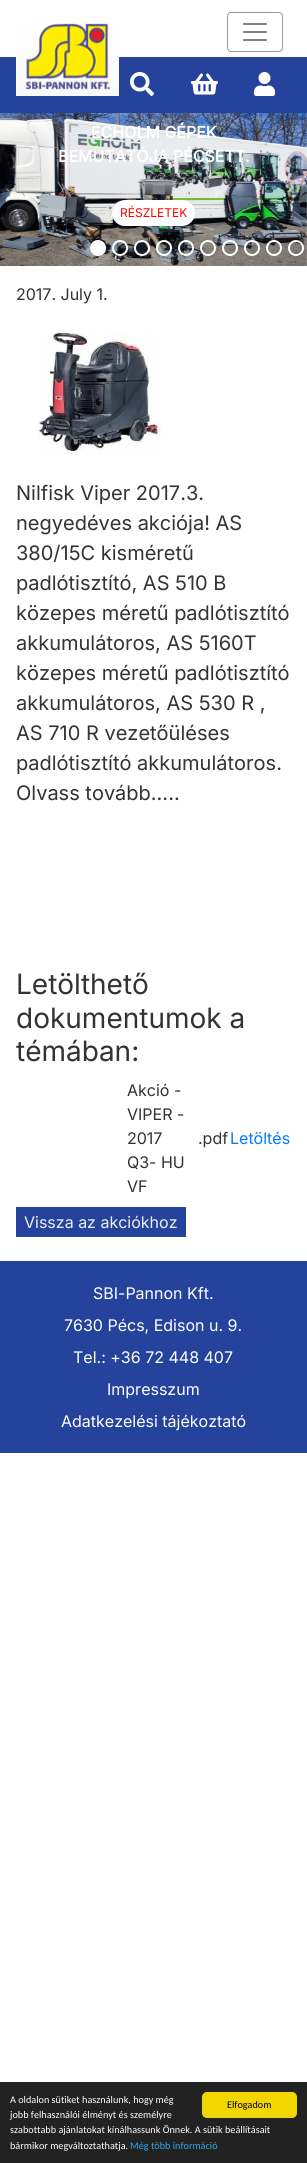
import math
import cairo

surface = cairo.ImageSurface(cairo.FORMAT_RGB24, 307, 2163)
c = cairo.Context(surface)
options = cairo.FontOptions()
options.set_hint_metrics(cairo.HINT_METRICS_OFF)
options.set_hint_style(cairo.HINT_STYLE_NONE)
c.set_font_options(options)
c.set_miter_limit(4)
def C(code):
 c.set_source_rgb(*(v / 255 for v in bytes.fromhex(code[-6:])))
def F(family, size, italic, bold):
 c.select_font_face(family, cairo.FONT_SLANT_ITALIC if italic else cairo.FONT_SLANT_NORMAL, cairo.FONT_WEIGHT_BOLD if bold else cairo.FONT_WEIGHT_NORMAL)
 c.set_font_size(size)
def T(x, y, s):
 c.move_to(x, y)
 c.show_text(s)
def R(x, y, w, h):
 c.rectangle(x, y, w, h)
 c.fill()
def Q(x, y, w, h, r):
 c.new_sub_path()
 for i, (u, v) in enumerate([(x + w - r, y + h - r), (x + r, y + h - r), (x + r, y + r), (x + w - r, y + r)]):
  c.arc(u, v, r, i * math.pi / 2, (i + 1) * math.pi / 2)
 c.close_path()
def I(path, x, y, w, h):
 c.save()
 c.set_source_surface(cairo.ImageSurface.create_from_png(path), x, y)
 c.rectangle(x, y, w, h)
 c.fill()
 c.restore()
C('ffffff')
c.paint()
C('25439c')
R(0,57,307,56)
I('1.png',16,23,103,73)
Q(227.5,12.5,55,39,3.5)
C('999999')
c.set_line_width(1)
c.stroke()
I('2.png',243,23,24,18)
I('3.png',130,72,24,24)
I('4.png',191,73,27,22)
I('5.png',254,72,21,24)
I('6.png',0,113,307,153)
F('Inter',16,0,1)
C('ffffff')
T(91,138,'ECHOLM GÉPEK')
T(58,162,'BEMUTATÓJA PÉCSETT.')
Q(112,200,83,26,13)
c.fill()
F('Inter',12,0,0)
C('ff0000')
T(120,217,'RÉSZLETEK')
C('ffffff')
c.new_path()
c.arc(98,248,7,0,2 * math.pi)
c.fill_preserve()
c.set_line_width(2)
c.stroke()
c.arc(120,248,7,0,2 * math.pi)
c.stroke()
c.arc(142,248,7,0,2 * math.pi)
c.stroke()
c.arc(164,248,7,0,2 * math.pi)
c.stroke()
c.arc(186,248,7,0,2 * math.pi)
c.stroke()
c.arc(208,248,7,0,2 * math.pi)
c.stroke()
c.arc(230,248,7,0,2 * math.pi)
c.stroke()
c.arc(252,248,7,0,2 * math.pi)
c.stroke()
c.arc(274,248,7,0,2 * math.pi)
c.stroke()
c.arc(296,248,7,0,2 * math.pi)
c.stroke()
F('Inter',16,0,0)
C('333333')
T(16,300,'2017. July 1.')
I('7.png',38,333,124,123)
F('Inter',20,0,0)
T(16,500,'Nilfisk Viper 2017.3.')
T(16,530,'negyedéves akciója! AS')
T(16,560,'380/15C kisméretű')
T(16,590,'padlótisztító, AS 510 B')
T(16,620,'közepes méretű padlótisztító')
T(16,650,'akkumulátoros, AS 5160T')
T(16,680,'közepes méretű padlótisztító')
T(16,710,'akkumulátoros, AS 530 R ,')
T(16,740,'AS 710 R vezetőüléses')
T(16,770,'padlótisztító akkumulátoros.')
T(16,800,'Olvass tovább.....')
F('Inter',28,0,0)
T(16,994,'Letölthető')
T(16,1028,'dokumentumok a')
T(16,1061,'témában:')
F('Inter',16,0,0)
T(127,1096,'Akció -')
T(127,1120,'VIPER -')
T(127,1144,'2017')
T(127,1168,'Q3- HU')
T(127,1192,'VF')
T(198,1144,'.pdf')
C('007bff')
T(230,1144,'Letöltés')
C('25439c')
R(16,1207,170,30)
C('eeeeee')
T(24,1228,'Vissza az akciókhoz')
C('25439c')
R(0,1261,307,192)
C('ffffff')
T(93,1299,'SBI-Pannon Kft.')
T(64,1331,'7630 Pécs, Edison u. 9.')
T(73,1363,'Tel.: +36 72 448 407')
T(107,1395,'Impresszum')
T(61,1427,'Adatkezelési tájékoztató')
C('222222')
R(0,2082,307,81)
F('Carlito',10.2,0,0)
C('ffffff')
T(10,2103,'A oldalon sütiket használunk, hogy még')
T(10,2118,'jobb felhasználói élményt és személyre')
T(10,2133,'szabottabb ajánlatokat kínálhassunk Önnek. A sütik beállításait')
T(10,2149,'bármikor megváltoztathatja.')
C('31a8f0')
T(130,2149,'Még több információ')
C('f1d600')
Q(202,2092,95,26,5)
c.fill()
C('000000')
T(227,2108,'Elfogadom')
surface.write_to_png('o.png')
